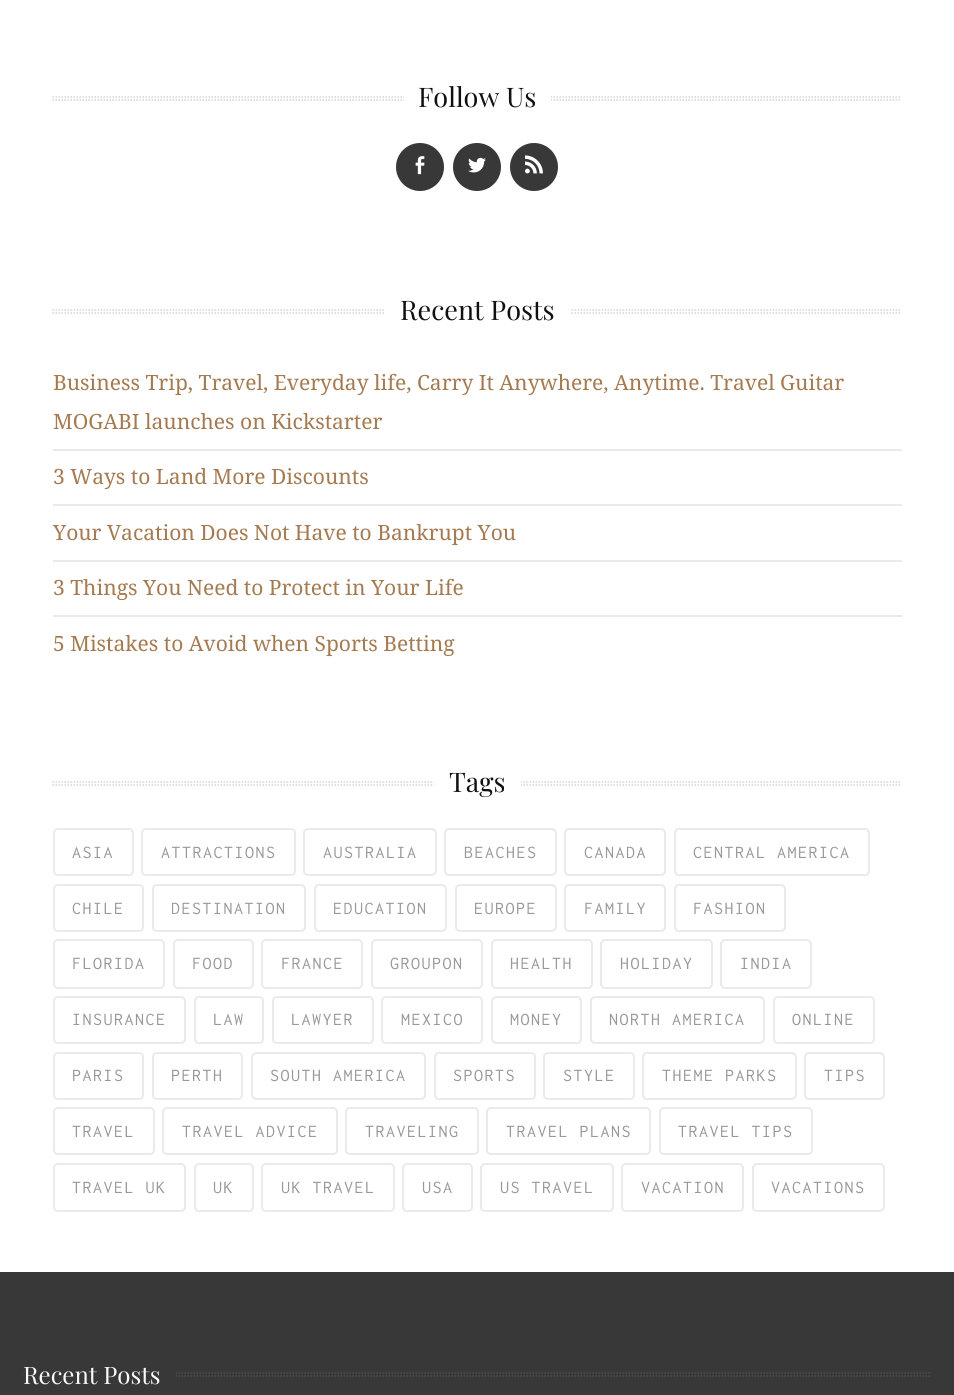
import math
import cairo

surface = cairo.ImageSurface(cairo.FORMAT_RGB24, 954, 1395)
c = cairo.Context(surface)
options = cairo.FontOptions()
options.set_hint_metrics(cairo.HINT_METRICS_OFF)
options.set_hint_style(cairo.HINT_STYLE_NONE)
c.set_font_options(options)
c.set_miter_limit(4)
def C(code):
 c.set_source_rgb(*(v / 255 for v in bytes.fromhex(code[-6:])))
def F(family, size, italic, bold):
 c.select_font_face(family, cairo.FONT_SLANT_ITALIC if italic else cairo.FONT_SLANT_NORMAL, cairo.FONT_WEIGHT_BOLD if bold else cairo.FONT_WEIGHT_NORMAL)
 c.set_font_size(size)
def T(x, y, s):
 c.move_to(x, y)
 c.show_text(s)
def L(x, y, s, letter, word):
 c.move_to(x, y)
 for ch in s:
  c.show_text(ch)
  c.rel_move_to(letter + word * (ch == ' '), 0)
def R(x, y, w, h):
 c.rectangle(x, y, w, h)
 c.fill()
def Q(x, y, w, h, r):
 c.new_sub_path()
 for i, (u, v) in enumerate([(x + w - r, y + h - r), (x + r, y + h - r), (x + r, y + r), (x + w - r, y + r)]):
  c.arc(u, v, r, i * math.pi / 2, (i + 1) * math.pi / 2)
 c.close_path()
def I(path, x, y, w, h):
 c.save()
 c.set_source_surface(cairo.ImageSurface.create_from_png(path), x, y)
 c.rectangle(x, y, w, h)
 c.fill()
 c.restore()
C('383838')
c.paint()
C('ffffff')
R(0,0,954,1272)
c.new_path()
c.move_to(52.5,97)
c.line_to(901.5,97)
C('d5d5d5')
c.set_line_width(1.5)
c.set_dash([1.5,1.5])
c.stroke()
c.new_path()
c.move_to(52.5,100)
c.line_to(901.5,100)
c.stroke()
C('ffffff')
R(404,96,147,5)
F('Playfair Display',27,0,0)
C('101010')
T(418,107,'Follow Us')
C('383838')
c.new_path()
c.arc(420,167,24,0,2 * math.pi)
c.fill()
I('1.png',415,156,10,19)
c.arc(477,167,24,0,2 * math.pi)
c.fill()
I('2.png',468,157,18,16)
c.arc(534,167,24,0,2 * math.pi)
c.fill()
I('3.png',525,155,18,19)
c.new_path()
c.move_to(52.5,310)
c.line_to(901.5,310)
C('d5d5d5')
c.stroke()
c.new_path()
c.move_to(52.5,313)
c.line_to(901.5,313)
c.stroke()
C('ffffff')
R(385,309,185,5)
C('101010')
T(400,320,'Recent Posts')
F('Noto Serif',21,0,0)
C('a57a50')
T(53,390,'Business Trip, Travel, Everyday life, Carry It Anywhere, Anytime. Travel Guitar')
T(53,429,'MOGABI launches on Kickstarter')
C('eaeaea')
R(53,449,849,2)
C('a57a50')
T(53,484,'3 Ways to Land More Discounts')
C('eaeaea')
R(53,504,849,2)
C('a57a50')
T(53,540,'Your Vacation Does Not Have to Bankrupt You')
C('eaeaea')
R(53,560,849,2)
C('a57a50')
T(53,595,'3 Things You Need to Protect in Your Life')
C('eaeaea')
R(53,615,849,2)
C('a57a50')
T(53,651,'5 Mistakes to Avoid when Sports Betting')
c.new_path()
c.move_to(52.5,782)
c.line_to(901.5,782)
C('d5d5d5')
c.stroke()
c.new_path()
c.move_to(52.5,785)
c.line_to(901.5,785)
c.stroke()
C('ffffff')
R(434,781,87,5)
F('Playfair Display',27,0,0)
C('101010')
T(449,792,'Tags')
Q(54,829,79,46,4)
C('eaeaea')
c.set_line_width(2)
c.set_dash([])
c.stroke()
F('Inconsolata',18,0,0)
C('999999')
L(72,858,'ASIA',1.5,0)
Q(142,829,153,46,4)
C('eaeaea')
c.stroke()
C('999999')
L(161,858,'ATTRACTIONS',1.5,0)
Q(304,829,132,46,4)
C('eaeaea')
c.stroke()
C('999999')
L(323,858,'AUSTRALIA',1.5,0)
Q(445,829,111,46,4)
C('eaeaea')
c.stroke()
C('999999')
L(464,858,'BEACHES',1.5,0)
Q(565,829,100,46,4)
C('eaeaea')
c.stroke()
C('999999')
L(584,858,'CANADA',1.5,0)
Q(675,829,194,46,4)
C('eaeaea')
c.stroke()
C('999999')
L(693,858,'CENTRAL AMERICA',1.5,0)
Q(54,885,89,46,4)
C('eaeaea')
c.stroke()
C('999999')
L(72,914,'CHILE',1.5,0)
Q(153,885,152,46,4)
C('eaeaea')
c.stroke()
C('999999')
L(171,914,'DESTINATION',1.5,0)
Q(315,885,131,46,4)
C('eaeaea')
c.stroke()
C('999999')
L(333,914,'EDUCATION',1.5,0)
Q(456,885,100,46,4)
C('eaeaea')
c.stroke()
C('999999')
L(474,914,'EUROPE',1.5,0)
Q(565,885,100,46,4)
C('eaeaea')
c.stroke()
C('999999')
L(584,914,'FAMILY',1.5,0)
Q(675,885,110,46,4)
C('eaeaea')
c.stroke()
C('999999')
L(693,914,'FASHION',1.5,0)
Q(54,940,110,48,4)
C('eaeaea')
c.stroke()
C('999999')
L(72,969,'FLORIDA',1.5,0)
Q(174,940,79,48,4)
C('eaeaea')
c.stroke()
C('999999')
L(192,969,'FOOD',1.5,0)
Q(262,940,100,48,4)
C('eaeaea')
c.stroke()
C('999999')
L(281,969,'FRANCE',1.5,0)
Q(372,940,110,48,4)
C('eaeaea')
c.stroke()
C('999999')
L(390,969,'GROUPON',1.5,0)
Q(492,940,100,48,4)
C('eaeaea')
c.stroke()
C('999999')
L(510,969,'HEALTH',1.5,0)
Q(601,940,111,48,4)
C('eaeaea')
c.stroke()
C('999999')
L(620,969,'HOLIDAY',1.5,0)
Q(721,940,90,48,4)
C('eaeaea')
c.stroke()
C('999999')
L(740,969,'INDIA',1.5,0)
Q(54,997,131,46,4)
C('eaeaea')
c.stroke()
C('999999')
L(72,1025,'INSURANCE',1.5,0)
Q(195,997,68,46,4)
C('eaeaea')
c.stroke()
C('999999')
L(213,1025,'LAW',1.5,0)
Q(273,997,100,46,4)
C('eaeaea')
c.stroke()
C('999999')
L(291,1025,'LAWYER',1.5,0)
Q(382,997,100,46,4)
C('eaeaea')
c.stroke()
C('999999')
L(401,1025,'MEXICO',1.5,0)
Q(492,997,89,46,4)
C('eaeaea')
c.stroke()
C('999999')
L(510,1025,'MONEY',1.5,0)
Q(591,997,173,46,4)
C('eaeaea')
c.stroke()
C('999999')
L(609,1025,'NORTH AMERICA',1.5,0)
Q(774,997,100,46,4)
C('eaeaea')
c.stroke()
C('999999')
L(792,1025,'ONLINE',1.5,0)
Q(54,1053,89,46,4)
C('eaeaea')
c.stroke()
C('999999')
L(72,1081,'PARIS',1.5,0)
Q(153,1053,89,46,4)
C('eaeaea')
c.stroke()
C('999999')
L(171,1081,'PERTH',1.5,0)
Q(252,1053,173,46,4)
C('eaeaea')
c.stroke()
C('999999')
L(270,1081,'SOUTH AMERICA',1.5,0)
Q(435,1053,100,46,4)
C('eaeaea')
c.stroke()
C('999999')
L(453,1081,'SPORTS',1.5,0)
Q(544,1053,90,46,4)
C('eaeaea')
c.stroke()
C('999999')
L(563,1081,'STYLE',1.5,0)
Q(643,1053,153,46,4)
C('eaeaea')
c.stroke()
C('999999')
L(662,1081,'THEME PARKS',1.5,0)
Q(805,1053,79,46,4)
C('eaeaea')
c.stroke()
C('999999')
L(824,1081,'TIPS',1.5,0)
Q(54,1108,100,46,4)
C('eaeaea')
c.stroke()
C('999999')
L(72,1137,'TRAVEL',1.5,0)
Q(163,1108,174,46,4)
C('eaeaea')
c.stroke()
C('999999')
L(182,1137,'TRAVEL ADVICE',1.5,0)
Q(346,1108,132,46,4)
C('eaeaea')
c.stroke()
C('999999')
L(365,1137,'TRAVELING',1.5,0)
Q(487,1108,163,46,4)
C('eaeaea')
c.stroke()
C('999999')
L(506,1137,'TRAVEL PLANS',1.5,0)
Q(660,1108,152,46,4)
C('eaeaea')
c.stroke()
C('999999')
L(678,1137,'TRAVEL TIPS',1.5,0)
Q(54,1164,131,47,4)
C('eaeaea')
c.stroke()
C('999999')
L(72,1193,'TRAVEL UK',1.5,0)
Q(195,1164,58,47,4)
C('eaeaea')
c.stroke()
C('999999')
L(213,1193,'UK',1.5,0)
Q(262,1164,132,47,4)
C('eaeaea')
c.stroke()
C('999999')
L(281,1193,'UK TRAVEL',1.5,0)
Q(403,1164,69,47,4)
C('eaeaea')
c.stroke()
C('999999')
L(422,1193,'USA',1.5,0)
Q(481,1164,132,47,4)
C('eaeaea')
c.stroke()
C('999999')
L(500,1193,'US TRAVEL',1.5,0)
Q(622,1164,121,47,4)
C('eaeaea')
c.stroke()
C('999999')
L(641,1193,'VACATION',1.5,0)
Q(753,1164,131,47,4)
C('eaeaea')
c.stroke()
C('999999')
L(771,1193,'VACATIONS',1.5,0)
c.new_path()
c.move_to(22.5,1373)
c.line_to(931.5,1373)
C('4d4d4d')
c.set_line_width(1.5)
c.set_dash([1.5,1.5])
c.stroke()
c.new_path()
c.move_to(22.5,1376)
c.line_to(931.5,1376)
c.stroke()
C('383838')
R(23,1372,153,5)
F('Playfair Display',24,0,0)
C('fafafa')
T(23,1384,'Recent Posts')
surface.write_to_png('o.png')
